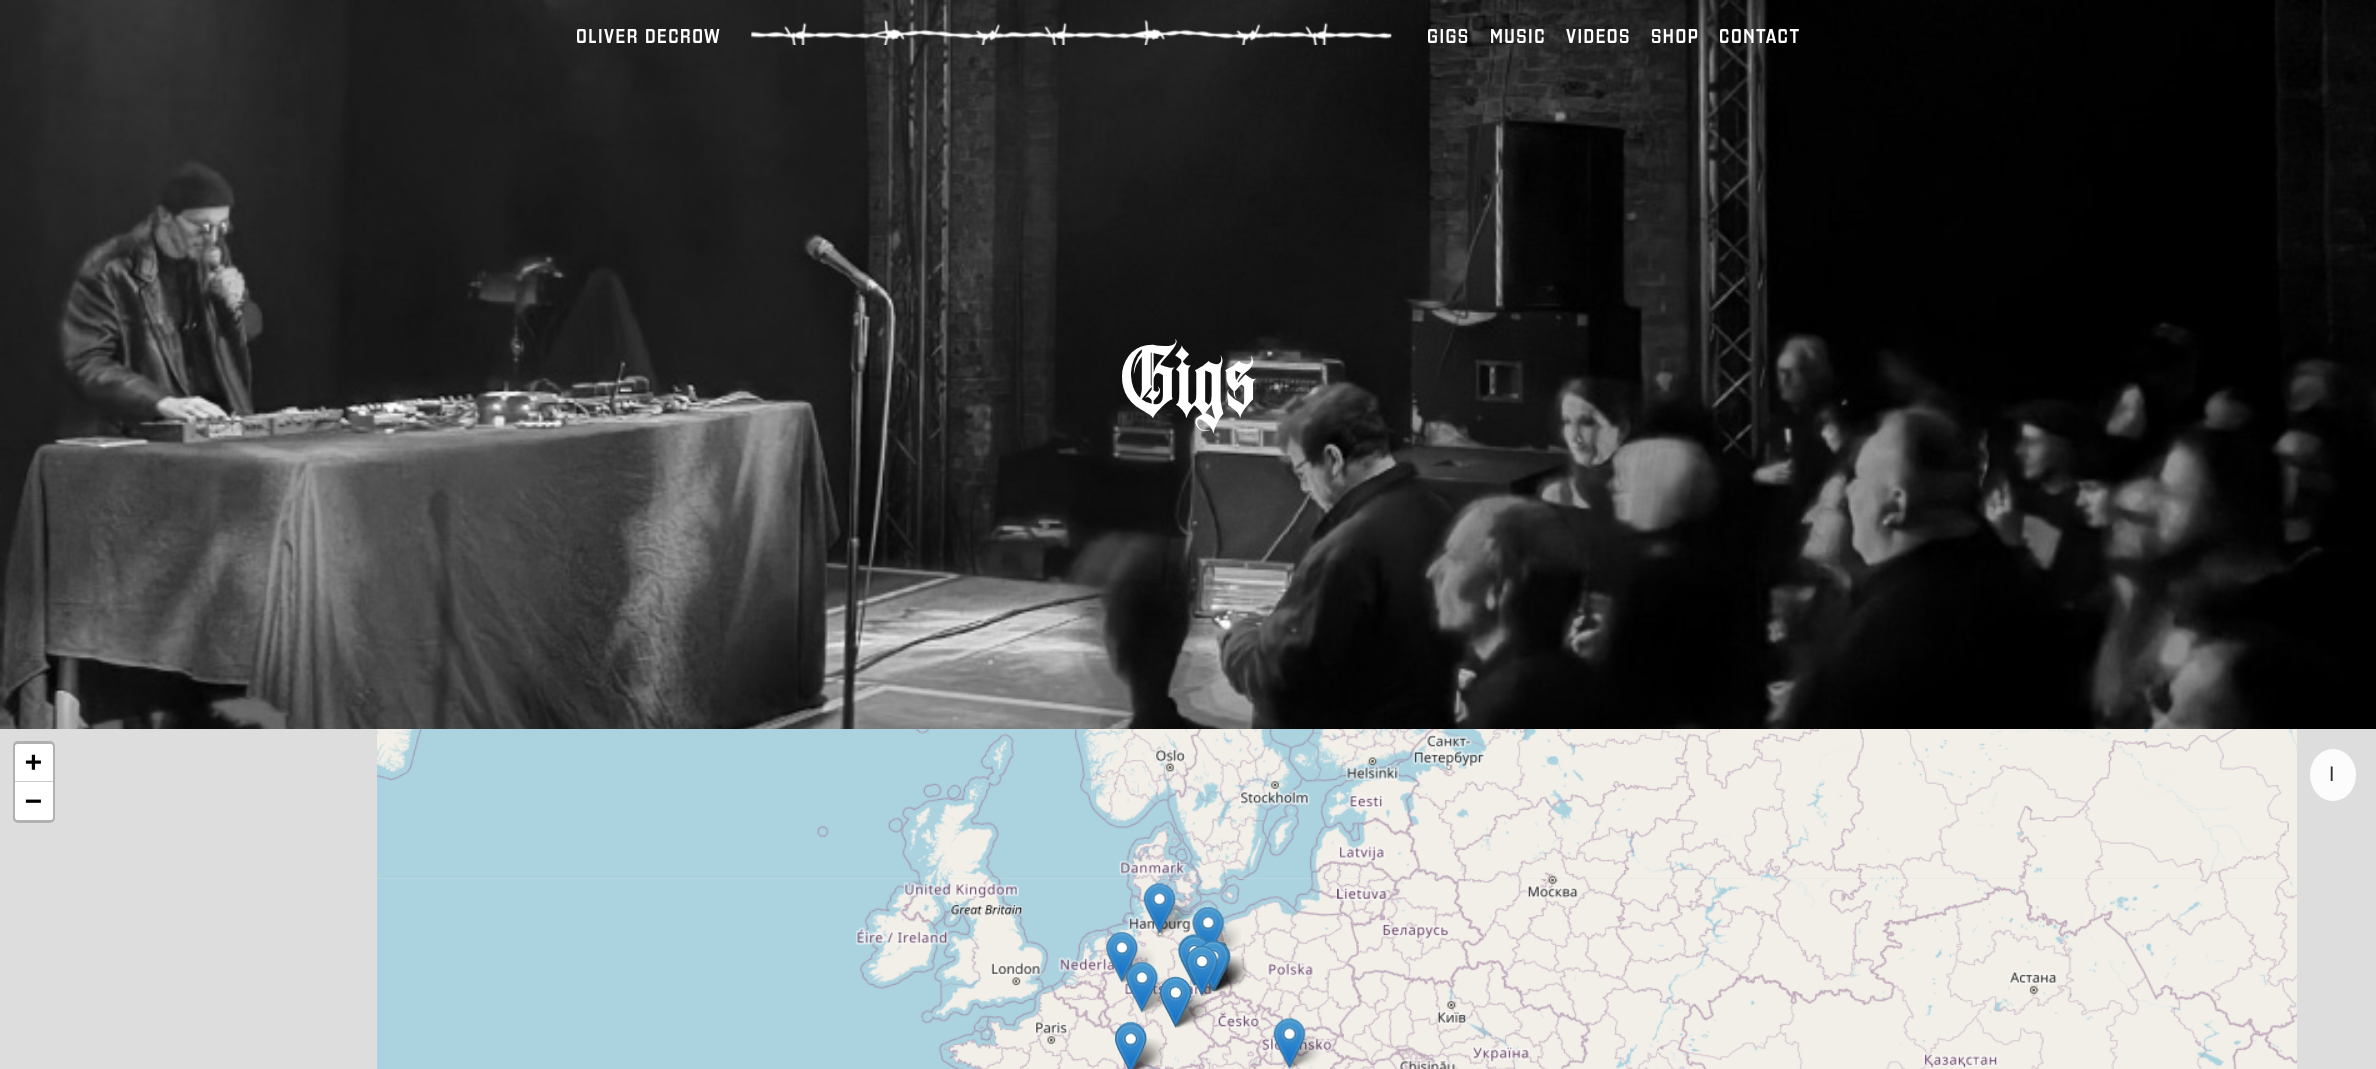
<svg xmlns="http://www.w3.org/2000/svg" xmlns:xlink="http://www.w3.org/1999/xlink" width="2376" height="1069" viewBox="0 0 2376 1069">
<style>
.cls-1{font:20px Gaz;letter-spacing:1.5px;fill:#ffffff}
.cls-2{font:120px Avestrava;letter-spacing:1.5px;fill:#ffffff}
.cls-3{font:bold 28px DejaVu Sans Mono;letter-spacing:1.5px;fill:#000000}
.cls-4{font:20px Inter;letter-spacing:1.5px;fill:#2f2f2f}
</style>
<rect width="100%" height="100%" fill="#ffffff"/>
<image xlink:href="image1.png" x="0" y="0" width="2376" height="729"/>
<image xlink:href="image0.png" x="751" y="20" width="641" height="25"/>
<rect fill="#dddddd" x="0" y="729" width="2376" height="340"/>
<rect fill="none" stroke="#b1b1b1" stroke-width="3" x="14.5" y="742.5" width="39" height="79" rx="3.5"/>
<path fill="#ffffff" d="M17.5 744H50.5C52 744 53 745 53 746.5V783H15V746.5C15 745 16 744 17.5 744Z"/>
<rect fill="#cccccc" x="15" y="781" width="38" height="1"/>
<path fill="#ffffff" d="M15 783H53V817.5C53 819 52 820 50.5 820H17.5C16 820 15 819 15 817.5Z"/>
<image xlink:href="image2.png" x="377" y="729" width="320" height="150"/>
<image xlink:href="image3.png" x="697" y="729" width="320" height="150"/>
<image xlink:href="image4.png" x="1017" y="729" width="320" height="150"/>
<image xlink:href="image5.png" x="1337" y="729" width="320" height="150"/>
<image xlink:href="image6.png" x="1657" y="729" width="320" height="150"/>
<image xlink:href="image7.png" x="1977" y="729" width="320" height="150"/>
<rect fill="#aad3df" x="377" y="879" width="320" height="190"/>
<image xlink:href="image8.png" x="697" y="879" width="320" height="190"/>
<image xlink:href="image9.png" x="1017" y="879" width="320" height="190"/>
<image xlink:href="image10.png" x="1337" y="879" width="320" height="190"/>
<image xlink:href="image11.png" x="1657" y="879" width="320" height="190"/>
<image xlink:href="image12.png" x="1977" y="879" width="320" height="190"/>
<image xlink:href="image30.png" x="1155" y="898" width="37" height="36"/>
<image xlink:href="image13.png" x="1143" y="882" width="33" height="52"/>
<image xlink:href="image31.png" x="1215" y="922" width="26" height="30"/>
<image xlink:href="image14.png" x="1192" y="906" width="33" height="37"/>
<image xlink:href="image40.png" x="1138" y="977" width="29" height="36"/>
<image xlink:href="image32.png" x="1118" y="947" width="37" height="36"/>
<image xlink:href="image15.png" x="1106" y="931" width="33" height="52"/>
<image xlink:href="image33.png" x="1209" y="956" width="37" height="36"/>
<image xlink:href="image35.png" x="1212" y="956" width="35" height="36"/>
<image xlink:href="image36.png" x="1212" y="956" width="35" height="36"/>
<image xlink:href="image34.png" x="1209" y="956" width="37" height="36"/>
<image xlink:href="image42.png" x="1172" y="992" width="37" height="36"/>
<image xlink:href="image37.png" x="1198" y="964" width="34" height="33"/>
<image xlink:href="image38.png" x="1191" y="967" width="35" height="20"/>
<image xlink:href="image39.png" x="1191" y="967" width="35" height="19"/>
<image xlink:href="image41.png" x="1191" y="969" width="34" height="17"/>
<image xlink:href="image16.png" x="1178" y="933" width="31" height="53"/>
<image xlink:href="image17.png" x="1178" y="933" width="31" height="52"/>
<image xlink:href="image18.png" x="1178" y="936" width="30" height="51"/>
<image xlink:href="image19.png" x="1200" y="941" width="30" height="50"/>
<image xlink:href="image21.png" x="1202" y="941" width="29" height="51"/>
<image xlink:href="image22.png" x="1202" y="941" width="29" height="51"/>
<image xlink:href="image20.png" x="1200" y="941" width="29" height="50"/>
<image xlink:href="image23.png" x="1126" y="961" width="33" height="52"/>
<image xlink:href="image43.png" x="1172" y="992" width="37" height="36"/>
<image xlink:href="image25.png" x="1186" y="946" width="32" height="51"/>
<image xlink:href="image24.png" x="1160" y="976" width="32" height="52"/>
<image xlink:href="image26.png" x="1160" y="976" width="32" height="52"/>
<image xlink:href="image46.png" x="1127" y="1039" width="37" height="30"/>
<image xlink:href="image44.png" x="1128" y="1037" width="36" height="32"/>
<image xlink:href="image27.png" x="1115" y="1021" width="32" height="48"/>
<image xlink:href="image45.png" x="1285" y="1033" width="37" height="36"/>
<image xlink:href="image28.png" x="1273" y="1017" width="33" height="52"/>
<image xlink:href="image29.png" x="1115" y="1023" width="32" height="46"/>
<ellipse fill="#fcfcfc" cx="2333" cy="775" rx="23" ry="26"/>
<text class="cls-1" x="576" y="43">OLIVER DECROW</text>
<text class="cls-1" x="1427" y="43">GIGS</text>
<text class="cls-1" x="1490" y="43">MUSIC</text>
<text class="cls-1" x="1566" y="43">VIDEOS</text>
<text class="cls-1" x="1651" y="43">SHOP</text>
<text class="cls-1" x="1719" y="43">CONTACT</text>
<text class="cls-2" x="1120" y="413">Gigs</text>
<text class="cls-3"><tspan x="25" y="771">+</tspan><tspan x="25" y="810">−</tspan></text>
<text class="cls-4" x="2329" y="781">I</text>
</svg>
